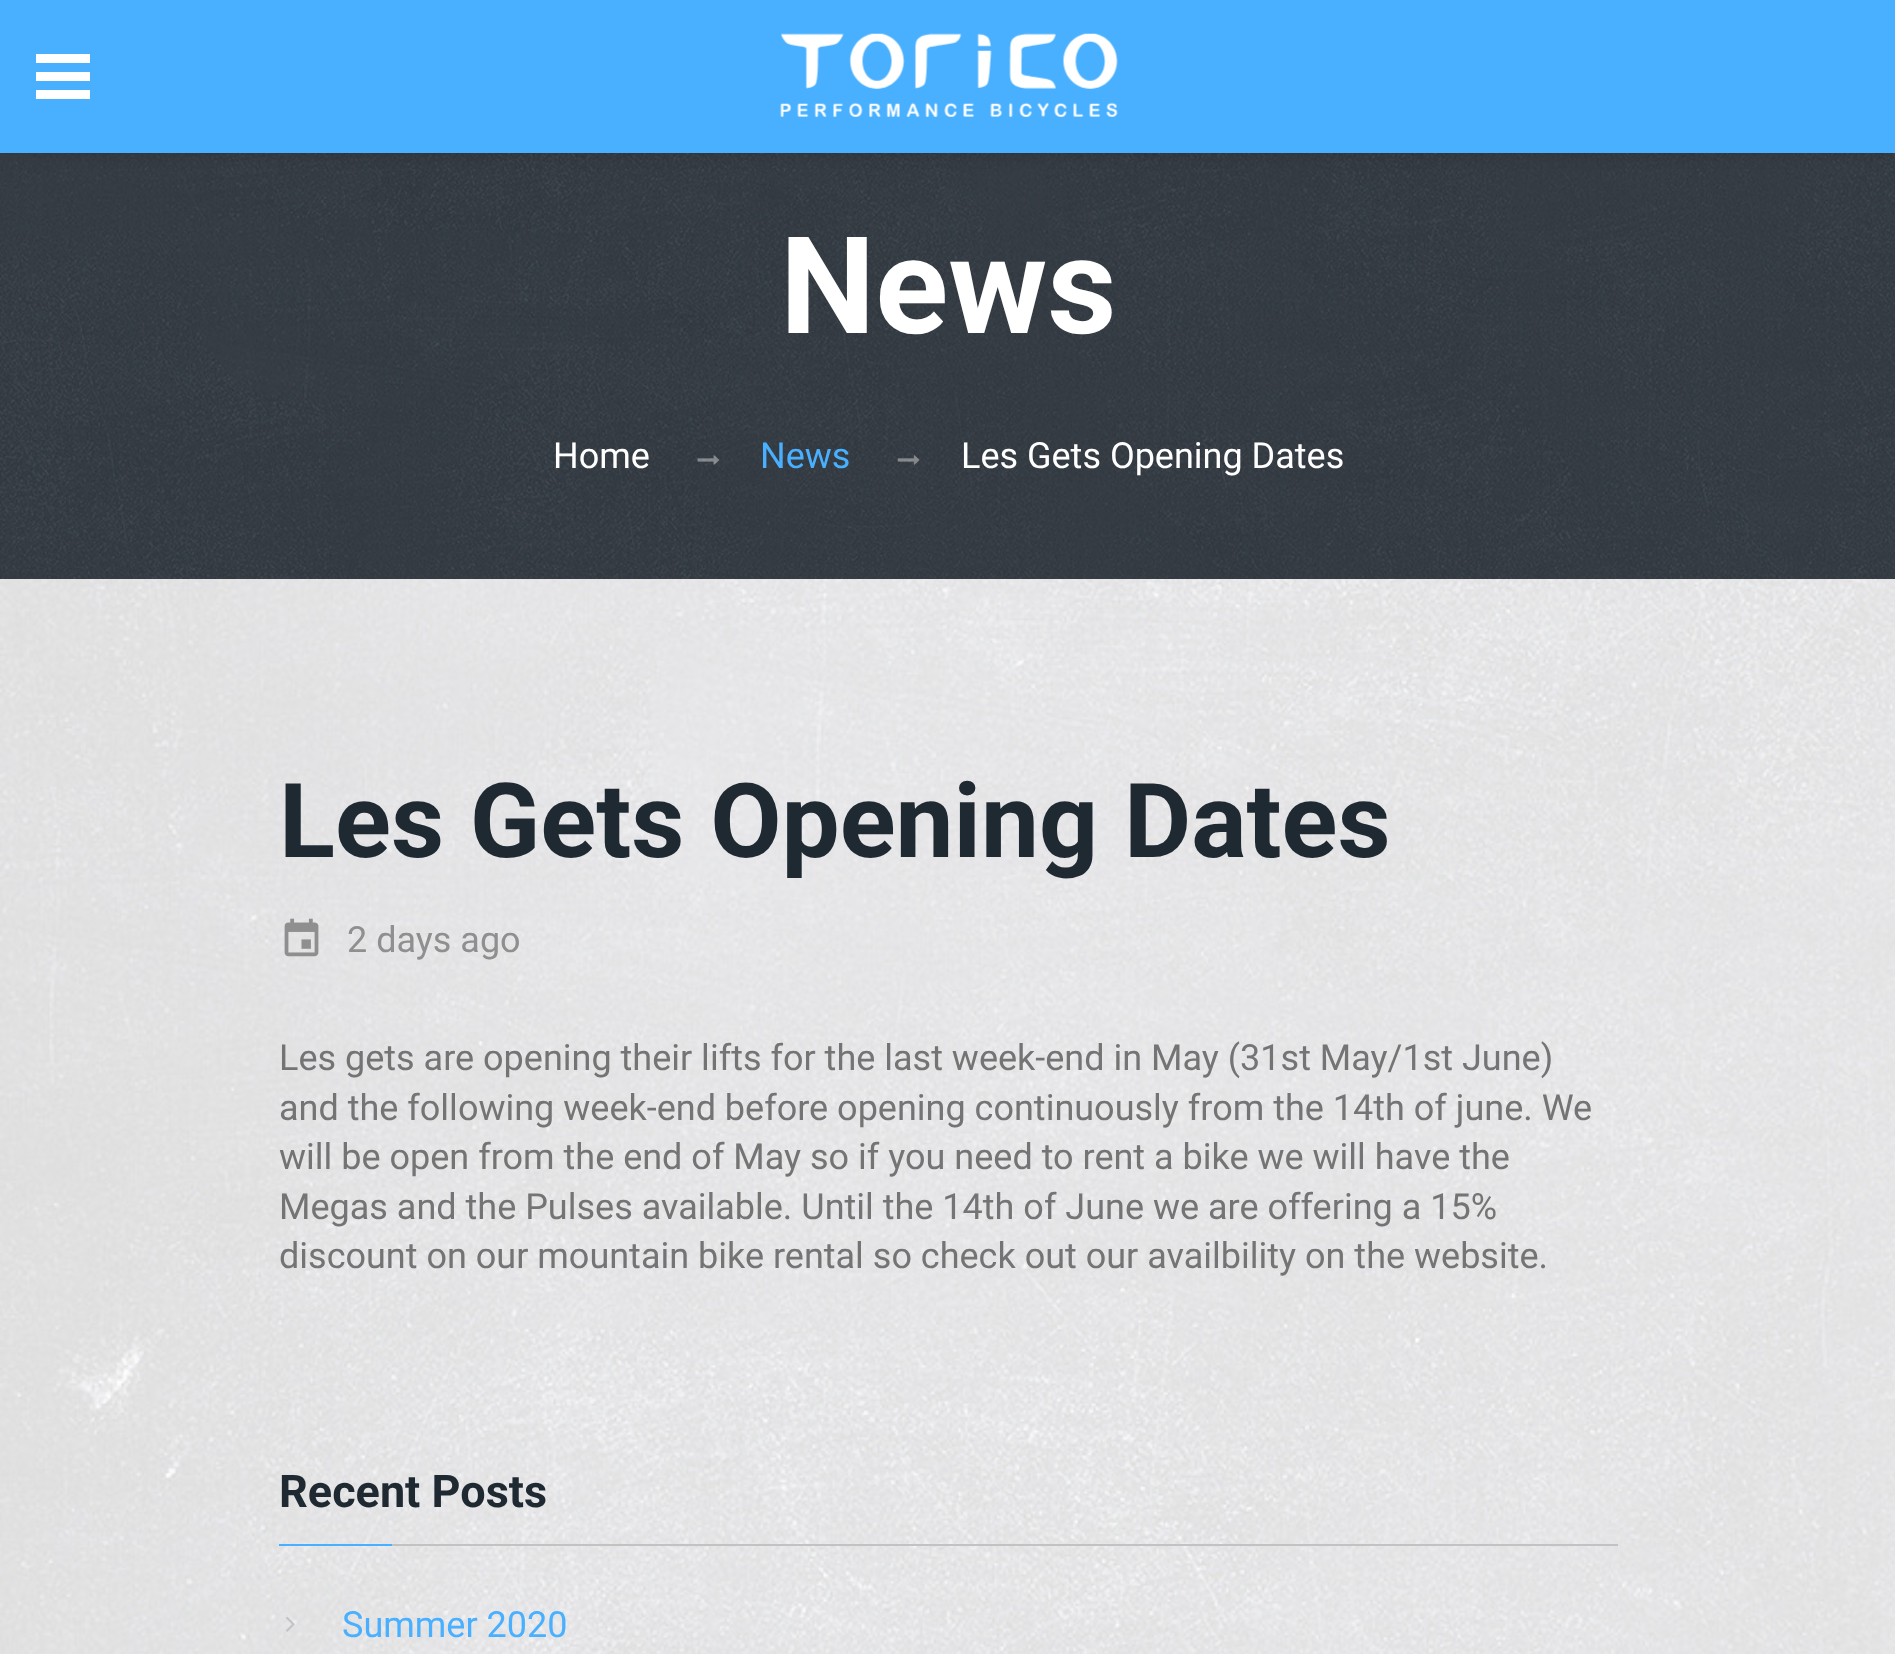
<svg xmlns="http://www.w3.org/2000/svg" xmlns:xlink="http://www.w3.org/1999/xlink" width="1895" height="1654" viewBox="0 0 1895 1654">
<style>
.cls-1{font:bold 135px Roboto;fill:#ffffff}
.cls-2{font:36px Roboto;fill:#ffffff}
.cls-3{font:36px Roboto;fill:#49b0ff}
.cls-4{font:bold 103.5px Roboto;fill:#1f2932}
.cls-5{font:36px Roboto;fill:#8f8f8f}
.cls-6{font:36px Roboto;fill:#747474}
.cls-7{font:bold 45px Roboto;fill:#1f2932}
</style>
<rect width="100%" height="100%" fill="#ffffff"/>
<image xlink:href="image0.png" x="0" y="579" width="1895" height="1075"/>
<image xlink:href="image2.png" x="0" y="153" width="1895" height="426"/>
<rect fill="#000000" fill-opacity="0.15" filter="blur(8px)" x="0" y="0" width="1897" height="153"/>
<rect fill="#49b0ff" x="0" y="0" width="1895" height="153"/>
<rect fill="#ffffff" x="36" y="72" width="54" height="9"/>
<rect fill="#ffffff" x="36" y="54" width="54" height="9"/>
<rect fill="#ffffff" x="36" y="90" width="54" height="9"/>
<image xlink:href="image1.png" x="780" y="33" width="338" height="84"/>
<image xlink:href="image3.png" x="697" y="455" width="23" height="10"/>
<image xlink:href="image4.png" x="897" y="455" width="23" height="10"/>
<image xlink:href="image5.png" x="284" y="918" width="35" height="39"/>
<rect fill="#c2c2c2" x="392" y="1544" width="1226" height="2"/>
<rect fill="#49b0ff" x="279" y="1544" width="113" height="2"/>
<image xlink:href="image6.png" x="286" y="1617" width="9" height="15"/>
<text class="cls-1" x="780" y="333">News</text>
<text class="cls-2" x="553" y="468">Home</text>
<text class="cls-3" x="760" y="468">News</text>
<text class="cls-2" x="961" y="468">Les Gets Opening Dates</text>
<text class="cls-4" x="279" y="857">Les Gets Opening Dates</text>
<text class="cls-5" x="347" y="952">2 days ago</text>
<text class="cls-6"><tspan x="279" y="1070">Les gets are opening their lifts for the last week-end in May (31st May/1st June)</tspan><tspan x="279" y="1120">and the following week-end before opening continuously from the 14th of june. We</tspan><tspan x="279" y="1169">will be open from the end of May so if you need to rent a bike we will have the</tspan><tspan x="279" y="1219">Megas and the Pulses available. Until the 14th of June we are offering a 15%</tspan><tspan x="279" y="1268">discount on our mountain bike rental so check out our availbility on the website.</tspan></text>
<text class="cls-7" x="279" y="1507">Recent Posts</text>
<text class="cls-3" x="342" y="1637">Summer 2020</text>
</svg>
